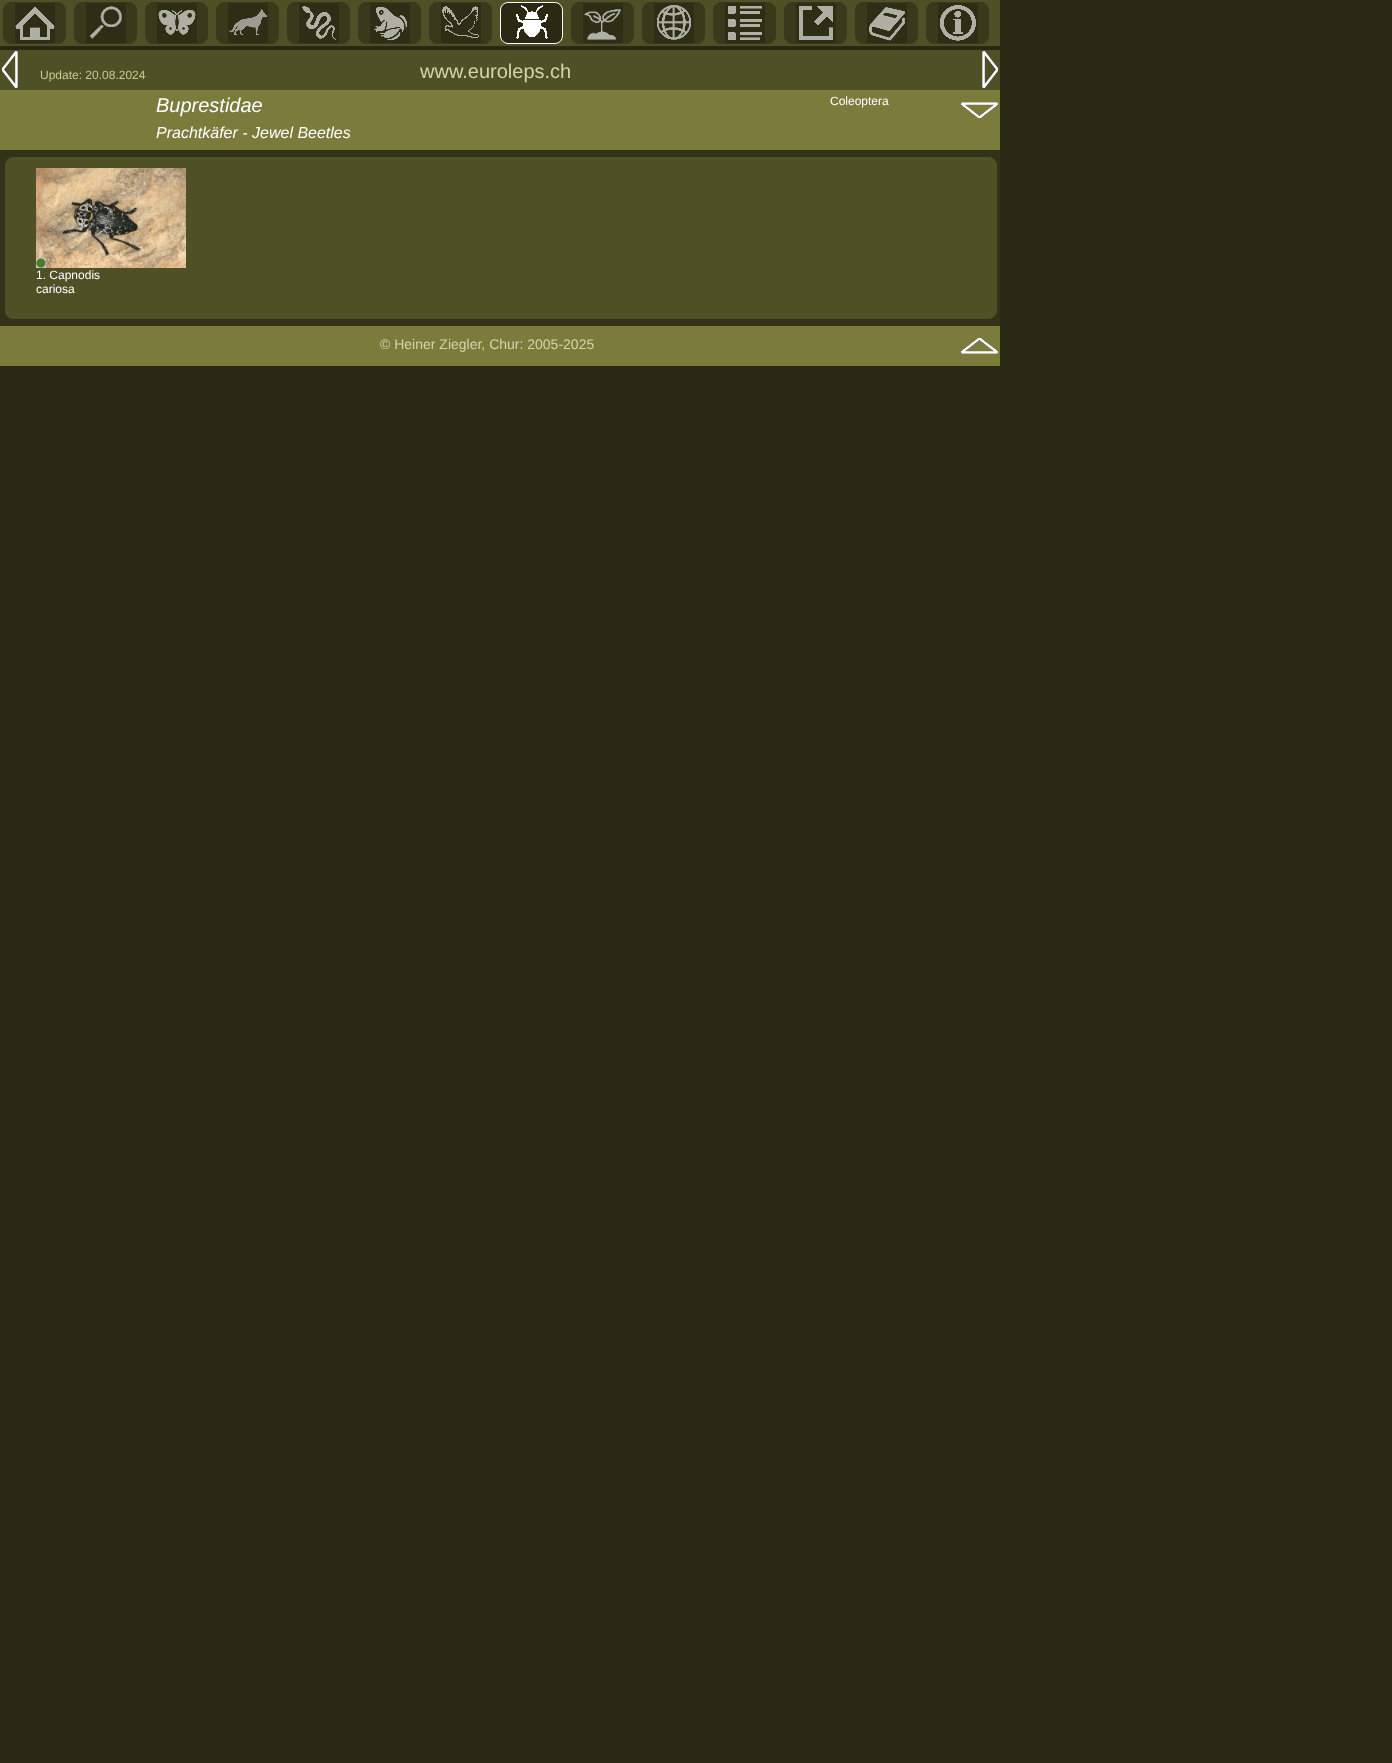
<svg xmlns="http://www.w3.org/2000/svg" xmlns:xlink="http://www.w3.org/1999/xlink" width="1392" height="1763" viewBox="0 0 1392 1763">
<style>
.cls-1{font:12px Liberation Sans;fill:#c9c994}
.cls-2{font:20px Liberation Sans;fill:#d5d5ad}
.cls-3{font:italic 20px Liberation Sans;fill:#ffffff}
.cls-4{font:12px Liberation Sans;fill:#ffffff}
.cls-5{font:italic 16px Liberation Sans;fill:#ffffff}
.cls-6{font:14px Liberation Sans;fill:#d5d5ad}
</style>
<rect width="100%" height="100%" fill="#292914"/>
<rect fill="#505027" x="0" y="0" width="1000" height="46"/>
<rect fill="#39391c" stroke="#39391c" x="3.5" y="2.5" width="62" height="41" rx="7.5"/>
<image xlink:href="image0.png" x="15" y="3" width="40" height="40"/>
<rect fill="#39391c" stroke="#39391c" x="74.5" y="2.5" width="62" height="41" rx="7.5"/>
<image xlink:href="image1.png" x="86" y="3" width="40" height="40"/>
<rect fill="#39391c" stroke="#39391c" x="145.5" y="2.5" width="62" height="41" rx="7.5"/>
<image xlink:href="image2.png" x="157" y="3" width="40" height="40"/>
<rect fill="#39391c" stroke="#39391c" x="216.5" y="2.5" width="62" height="41" rx="7.5"/>
<image xlink:href="image3.png" x="228" y="3" width="40" height="40"/>
<rect fill="#39391c" stroke="#39391c" x="287.5" y="2.5" width="62" height="41" rx="7.5"/>
<image xlink:href="image4.png" x="299" y="3" width="40" height="40"/>
<rect fill="#39391c" stroke="#39391c" x="358.5" y="2.5" width="62" height="41" rx="7.5"/>
<image xlink:href="image5.png" x="370" y="3" width="40" height="40"/>
<rect fill="#39391c" stroke="#39391c" x="429.5" y="2.5" width="62" height="41" rx="7.5"/>
<image xlink:href="image6.png" x="441" y="3" width="40" height="40"/>
<rect fill="#292914" stroke="#ffffff" x="500.5" y="2.5" width="62" height="41" rx="7.5"/>
<image xlink:href="image7.png" x="516" y="5" width="32" height="34"/>
<rect fill="#39391c" stroke="#39391c" x="571.5" y="2.5" width="62" height="41" rx="7.5"/>
<image xlink:href="image8.png" x="583" y="3" width="40" height="40"/>
<rect fill="#39391c" stroke="#39391c" x="642.5" y="2.5" width="62" height="41" rx="7.5"/>
<image xlink:href="image9.png" x="654" y="3" width="40" height="40"/>
<rect fill="#39391c" stroke="#39391c" x="713.5" y="2.5" width="62" height="41" rx="7.5"/>
<image xlink:href="image10.png" x="725" y="3" width="40" height="40"/>
<rect fill="#39391c" stroke="#39391c" x="784.5" y="2.5" width="62" height="41" rx="7.5"/>
<image xlink:href="image11.png" x="796" y="3" width="40" height="40"/>
<rect fill="#39391c" stroke="#39391c" x="855.5" y="2.5" width="62" height="41" rx="7.5"/>
<image xlink:href="image12.png" x="867" y="3" width="40" height="40"/>
<rect fill="#39391c" stroke="#39391c" x="926.5" y="2.5" width="62" height="41" rx="7.5"/>
<image xlink:href="image13.png" x="938" y="3" width="40" height="40"/>
<rect fill="#505027" x="0" y="50" width="1000" height="40"/>
<image xlink:href="image14.png" x="2" y="51" width="16" height="37"/>
<image xlink:href="image15.png" x="982" y="51" width="16" height="37"/>
<rect fill="#7b7b3c" x="0" y="90" width="1000" height="60"/>
<image xlink:href="image16.png" x="961" y="102" width="37" height="16"/>
<rect fill="#323218" x="0" y="150" width="1000" height="176"/>
<rect fill="#505027" stroke="#505027" x="5.5" y="157.5" width="991" height="161" rx="7.5"/>
<image xlink:href="image17.png" x="36" y="168" width="150" height="100"/>
<image xlink:href="image18.png" x="36" y="258" width="10" height="10"/>
<rect fill="#7b7b3c" x="0" y="326" width="1000" height="40"/>
<image xlink:href="image19.png" x="961" y="338" width="37" height="16"/>
<text class="cls-1" x="40" y="79">Update: 20.08.2024</text>
<text class="cls-2" x="420" y="78">www.euroleps.ch</text>
<text class="cls-3" x="156" y="112">Buprestidae</text>
<text class="cls-4" x="830" y="105">Coleoptera</text>
<text class="cls-5" x="156" y="138">Prachtkäfer - Jewel Beetles</text>
<text class="cls-4"><tspan x="36" y="279">1. Capnodis</tspan><tspan x="36" y="293">cariosa</tspan></text>
<text class="cls-6" x="380" y="349">© Heiner Ziegler, Chur: 2005-2025</text>
</svg>
